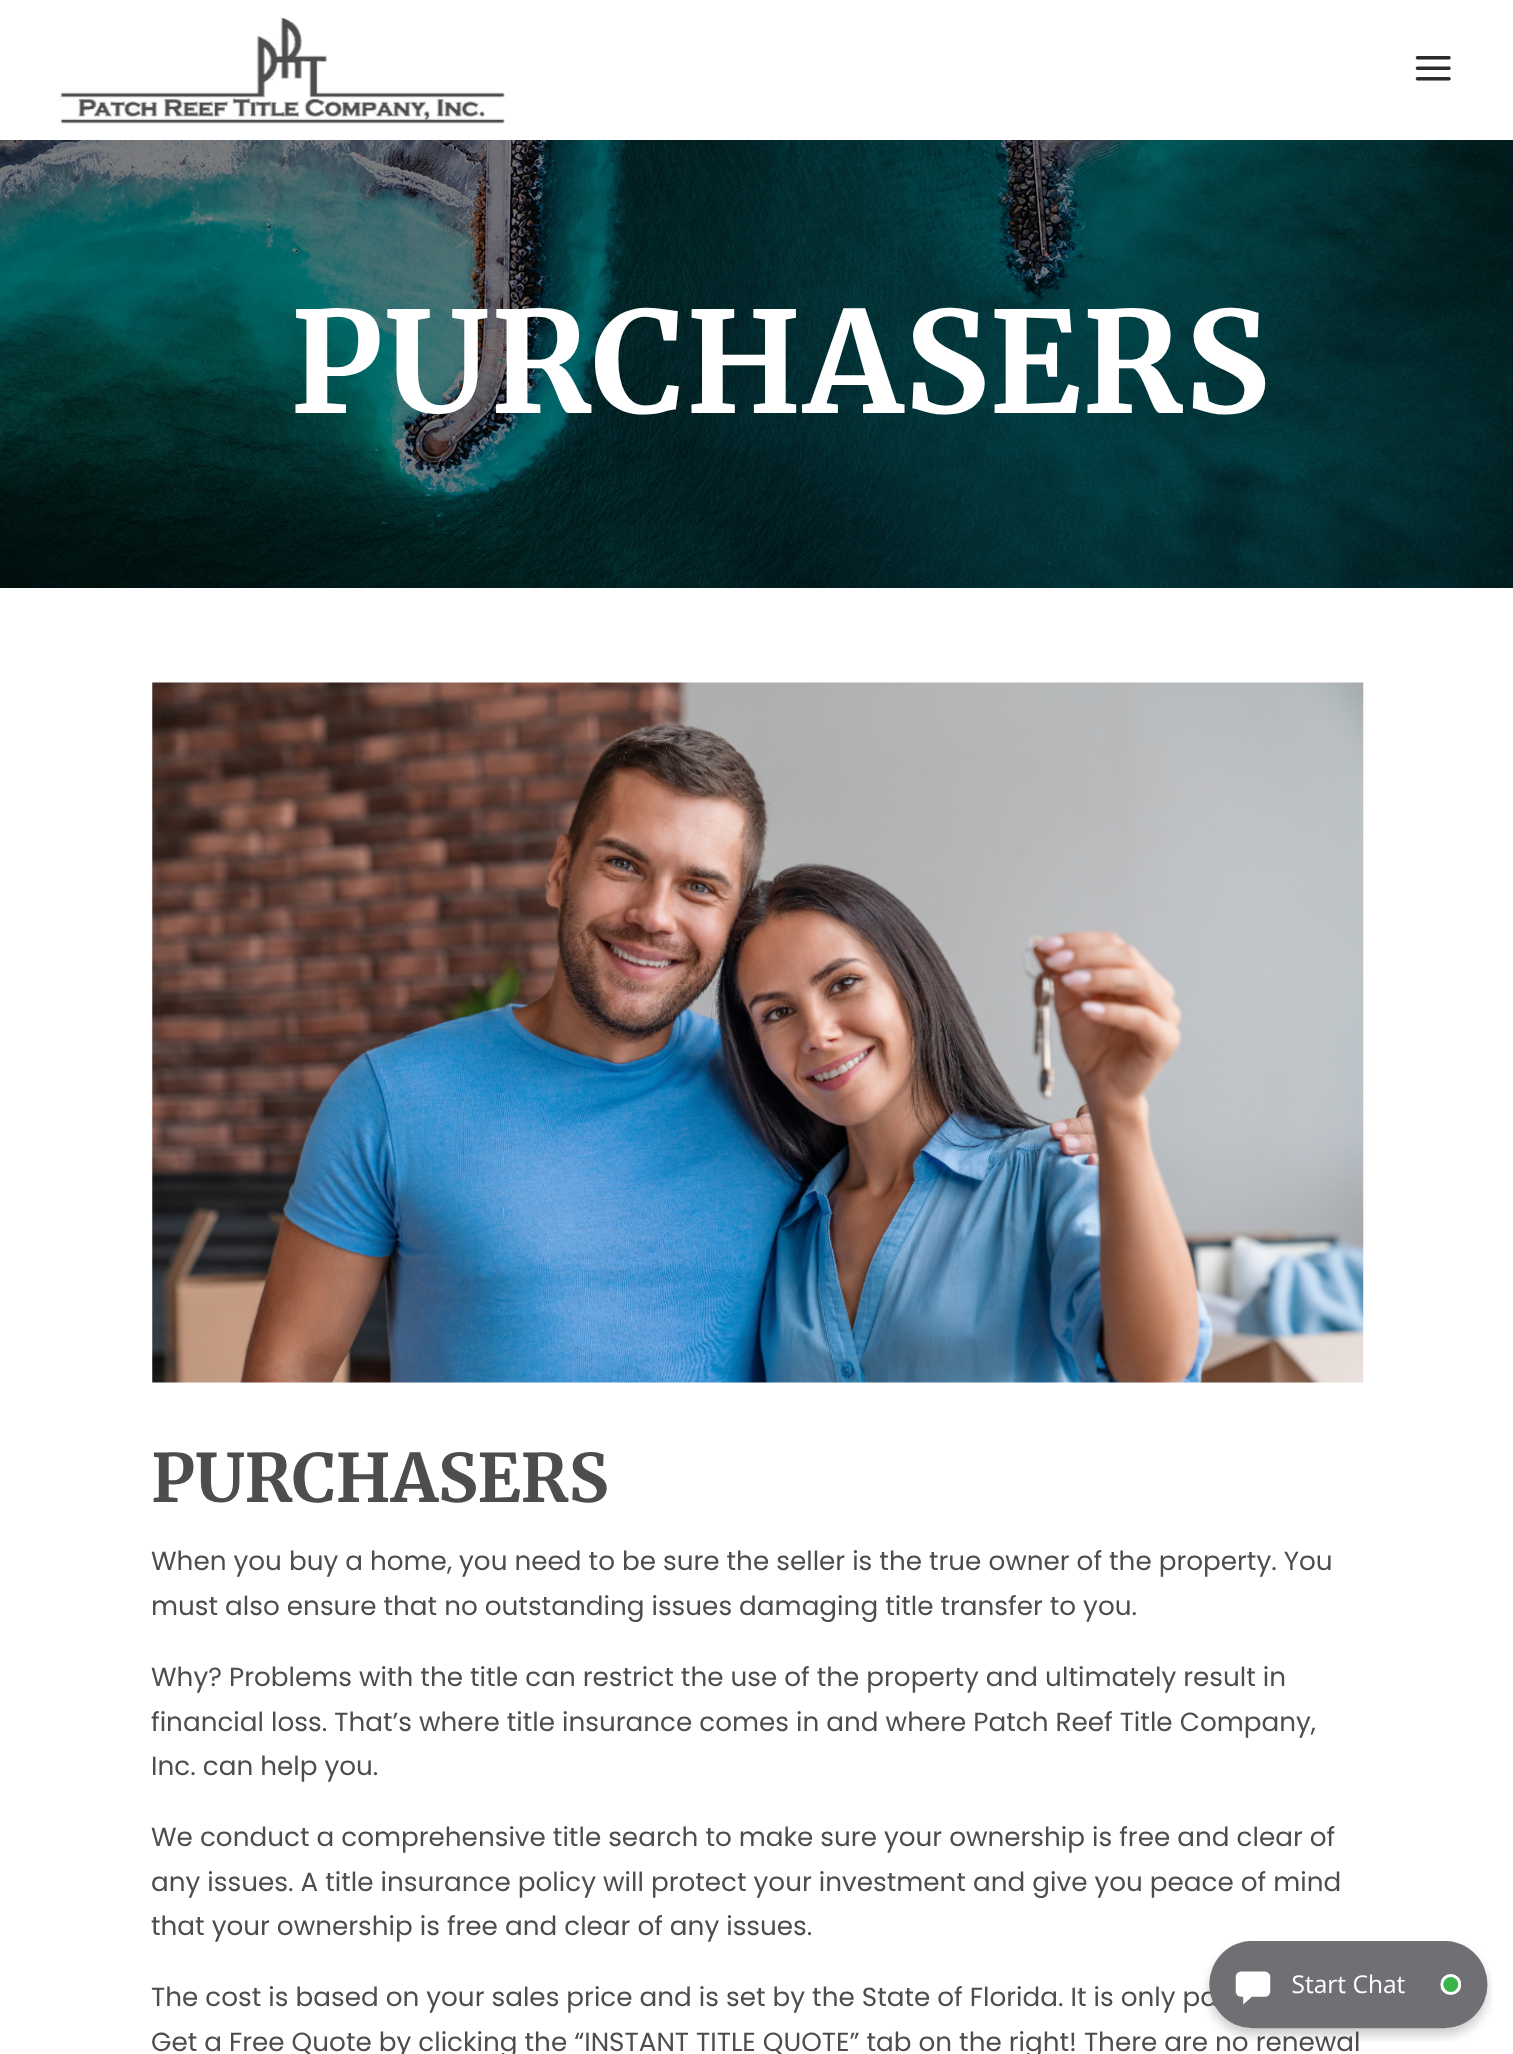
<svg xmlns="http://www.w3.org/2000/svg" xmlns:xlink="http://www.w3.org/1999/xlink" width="1513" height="2054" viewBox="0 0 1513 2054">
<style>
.cls-1{font:bold 140px Merriweather;letter-spacing:1.75px;fill:#ffffff}
.cls-2{font:bold 66.5px Merriweather;fill:#4d4d4d}
.cls-3{font:26.25px Poppins;fill:#4d4d4d}
</style>
<rect width="100%" height="100%" fill="#ffffff"/>
<image xlink:href="image0.png" x="59" y="17" width="447" height="107"/>
<image xlink:href="image1.png" x="1415" y="56" width="36" height="25"/>
<image xlink:href="image2.png" x="0" y="140" width="1513" height="448"/>
<image xlink:href="image3.png" x="152" y="682" width="1212" height="701"/>
<text class="cls-1" x="290" y="413">PURCHASERS</text>
<text class="cls-2" x="151" y="1502">PURCHASERS</text>
<text class="cls-3"><tspan x="151" y="1570">When you buy a home, you need to be sure the seller is the true owner of the property. You</tspan><tspan x="151" y="1615">must also ensure that no outstanding issues damaging title transfer to you.</tspan></text>
<text class="cls-3"><tspan x="151" y="1686">Why? Problems with the title can restrict the use of the property and ultimately result in</tspan><tspan x="151" y="1731">financial loss. That’s where title insurance comes in and where Patch Reef Title Company,</tspan><tspan x="151" y="1775">Inc. can help you.</tspan></text>
<text class="cls-3"><tspan x="151" y="1846">We conduct a comprehensive title search to make sure your ownership is free and clear of</tspan><tspan x="151" y="1891">any issues. A title insurance policy will protect your investment and give you peace of mind</tspan><tspan x="151" y="1935">that your ownership is free and clear of any issues.</tspan></text>
<text class="cls-3"><tspan x="151" y="2006">The cost is based on your sales price and is set by the State of Florida. It is only pa</tspan><tspan x="151" y="2051">Get a Free Quote by clicking the “INSTANT TITLE QUOTE” tab on the right! There are no renewal</tspan></text>
<image xlink:href="image4.png" x="1203" y="1941" width="290" height="101"/>
</svg>
